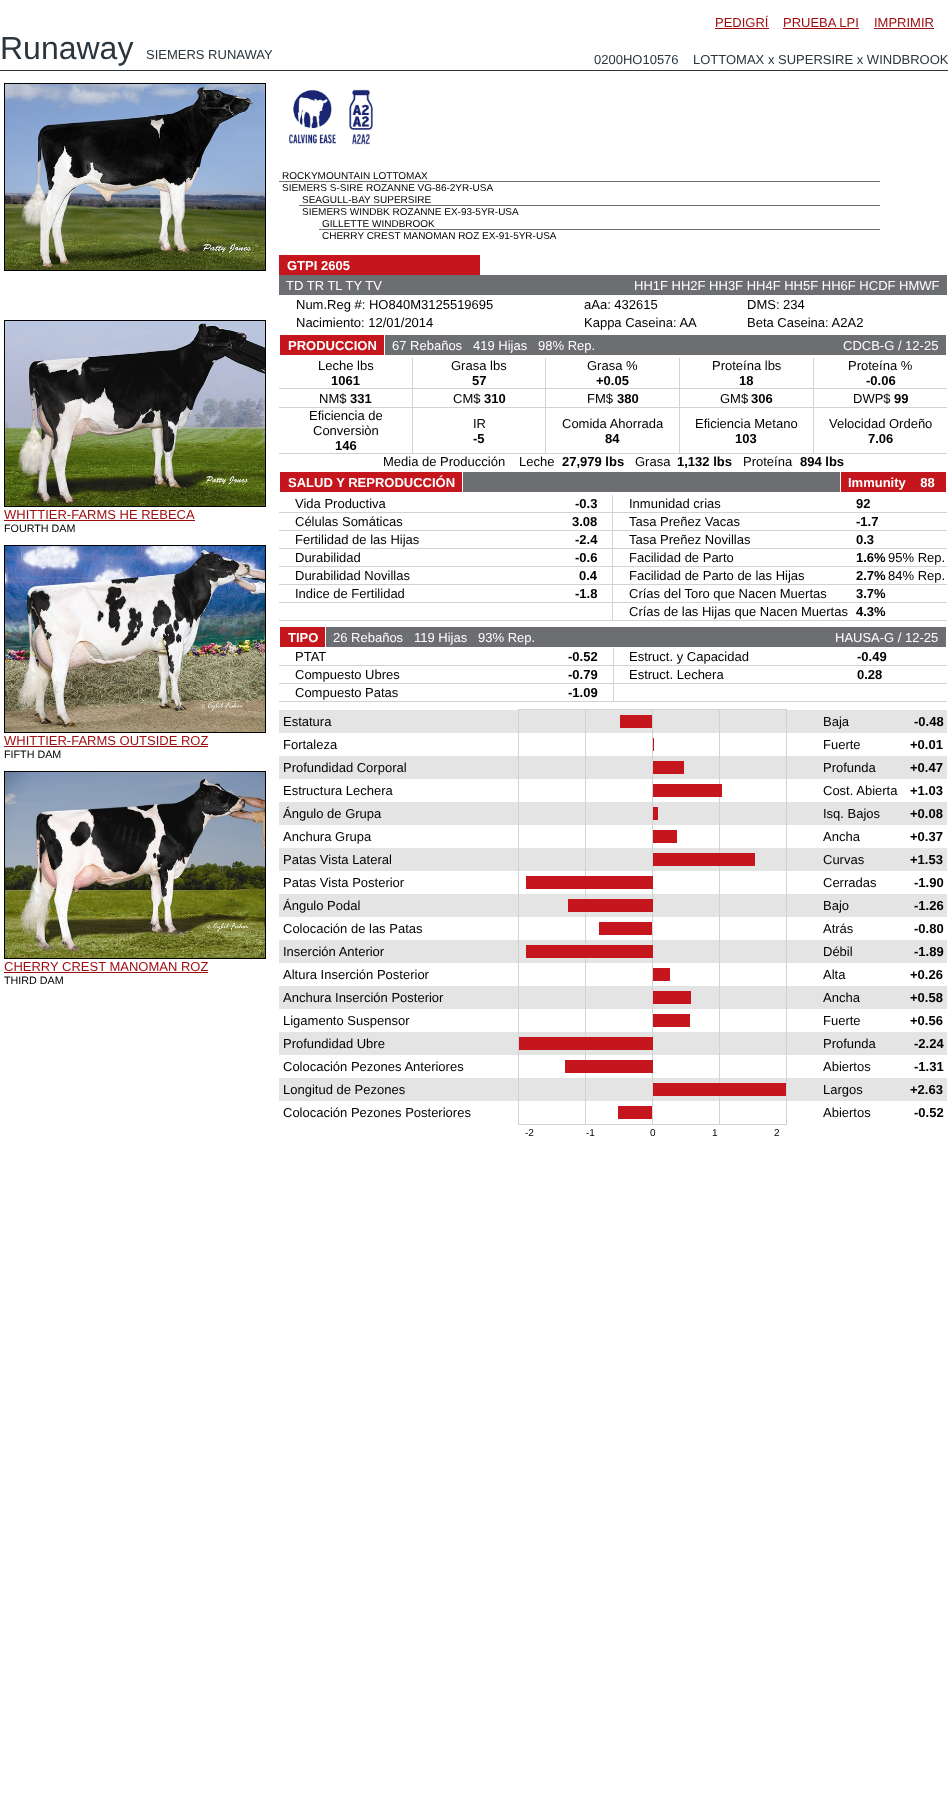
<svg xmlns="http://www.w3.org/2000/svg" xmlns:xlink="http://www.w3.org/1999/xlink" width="948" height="1800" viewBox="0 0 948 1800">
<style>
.cls-1{font:13px Liberation Sans;fill:#9d0b0e}
.cls-2{font:32px Liberation Sans;fill:#2a353e}
.cls-3{font:13px Liberation Sans;fill:#2a353e}
.cls-4{font:10.75px Liberation Sans;fill:#000000}
.cls-5{font:10px Liberation Sans;fill:#000000}
.cls-6{font:bold 13px Liberation Sans;fill:#ffffff}
.cls-7{font:13px Liberation Sans;fill:#ffffff}
.cls-8{font:13px Liberation Sans;fill:#000000}
.cls-9{font:bold 13px Liberation Sans;fill:#000000}
</style>
<rect width="100%" height="100%" fill="#ffffff"/>
<rect fill="#9d0b0e" x="715" y="28" width="54" height="1"/>
<rect fill="#9d0b0e" x="783" y="28" width="76" height="1"/>
<rect fill="#9d0b0e" x="874" y="28" width="60" height="1"/>
<rect fill="#2a353e" x="0" y="70" width="948" height="1"/>
<rect fill="#000000" x="4" y="83" width="262" height="188"/>
<image xlink:href="image0.png" x="5" y="84" width="260" height="186"/>
<rect fill="#000000" x="4" y="320" width="262" height="187"/>
<image xlink:href="image1.png" x="5" y="321" width="260" height="185"/>
<rect fill="#9d0b0e" x="4" y="520" width="191" height="1"/>
<rect fill="#000000" x="4" y="545" width="262" height="188"/>
<image xlink:href="image2.png" x="5" y="546" width="260" height="186"/>
<rect fill="#9d0b0e" x="4" y="746" width="204" height="1"/>
<rect fill="#000000" x="4" y="771" width="262" height="188"/>
<image xlink:href="image3.png" x="5" y="772" width="260" height="186"/>
<rect fill="#9d0b0e" x="4" y="972" width="204" height="1"/>
<image xlink:href="image4.png" x="289" y="89" width="47" height="55"/>
<image xlink:href="image5.png" x="349" y="89" width="24" height="56"/>
<rect fill="#6f6e70" x="279" y="181" width="601" height="1"/>
<rect fill="#6f6e70" x="299" y="205" width="581" height="1"/>
<rect fill="#6f6e70" x="319" y="229" width="561" height="1"/>
<rect fill="#c4161c" x="279" y="255" width="201" height="20"/>
<rect fill="#6d6e71" x="279" y="275" width="668" height="20"/>
<rect fill="#c4161c" x="280" y="335" width="104" height="20"/>
<rect fill="#6d6e71" x="385" y="335" width="561" height="20"/>
<rect fill="#d1d2d4" x="412" y="358" width="1" height="30"/>
<rect fill="#d1d2d4" x="545" y="358" width="1" height="30"/>
<rect fill="#d1d2d4" x="679" y="358" width="1" height="30"/>
<rect fill="#d1d2d4" x="813" y="358" width="1" height="30"/>
<rect fill="#d1d2d4" x="279" y="388" width="668" height="1"/>
<rect fill="#d1d2d4" x="412" y="389" width="1" height="18"/>
<rect fill="#d1d2d4" x="545" y="389" width="1" height="18"/>
<rect fill="#d1d2d4" x="679" y="389" width="1" height="18"/>
<rect fill="#d1d2d4" x="813" y="389" width="1" height="18"/>
<rect fill="#d1d2d4" x="279" y="407" width="668" height="1"/>
<rect fill="#d1d2d4" x="412" y="408" width="1" height="45"/>
<rect fill="#d1d2d4" x="545" y="408" width="1" height="45"/>
<rect fill="#d1d2d4" x="679" y="408" width="1" height="45"/>
<rect fill="#d1d2d4" x="813" y="408" width="1" height="45"/>
<rect fill="#d1d2d4" x="279" y="453" width="668" height="1"/>
<rect fill="#c4161c" x="280" y="472" width="182" height="20"/>
<rect fill="#6d6e71" x="463" y="472" width="377" height="20"/>
<rect fill="#c4161c" x="841" y="472" width="105" height="20"/>
<rect fill="#d1d2d4" x="612" y="495" width="1" height="17"/>
<rect fill="#d1d2d4" x="279" y="512" width="668" height="1"/>
<rect fill="#d1d2d4" x="612" y="513" width="1" height="17"/>
<rect fill="#d1d2d4" x="279" y="530" width="668" height="1"/>
<rect fill="#d1d2d4" x="612" y="531" width="1" height="17"/>
<rect fill="#d1d2d4" x="279" y="548" width="668" height="1"/>
<rect fill="#d1d2d4" x="612" y="549" width="1" height="17"/>
<rect fill="#d1d2d4" x="279" y="566" width="668" height="1"/>
<rect fill="#d1d2d4" x="612" y="567" width="1" height="17"/>
<rect fill="#d1d2d4" x="279" y="584" width="668" height="1"/>
<rect fill="#d1d2d4" x="612" y="585" width="1" height="17"/>
<rect fill="#d1d2d4" x="279" y="602" width="668" height="1"/>
<rect fill="#d1d2d4" x="612" y="603" width="1" height="17"/>
<rect fill="#d1d2d4" x="279" y="620" width="668" height="1"/>
<rect fill="#c4161c" x="280" y="627" width="45" height="20"/>
<rect fill="#6d6e71" x="326" y="627" width="620" height="20"/>
<rect fill="#d1d2d4" x="613" y="648" width="1" height="17"/>
<rect fill="#d1d2d4" x="279" y="665" width="668" height="1"/>
<rect fill="#d1d2d4" x="613" y="666" width="1" height="17"/>
<rect fill="#d1d2d4" x="279" y="683" width="668" height="1"/>
<rect fill="#d1d2d4" x="613" y="684" width="1" height="17"/>
<rect fill="#d1d2d4" x="279" y="701" width="668" height="1"/>
<rect fill="#d1d2d4" x="518" y="709" width="269" height="1"/>
<rect fill="#e4e4e4" x="279" y="710" width="668" height="23"/>
<rect fill="#e4e4e4" x="279" y="756" width="668" height="23"/>
<rect fill="#e4e4e4" x="279" y="802" width="668" height="23"/>
<rect fill="#e4e4e4" x="279" y="848" width="668" height="23"/>
<rect fill="#e4e4e4" x="279" y="894" width="668" height="23"/>
<rect fill="#e4e4e4" x="279" y="940" width="668" height="23"/>
<rect fill="#e4e4e4" x="279" y="986" width="668" height="23"/>
<rect fill="#e4e4e4" x="279" y="1032" width="668" height="23"/>
<rect fill="#e4e4e4" x="279" y="1078" width="668" height="23"/>
<rect fill="#d1d2d4" x="518" y="710" width="1" height="414"/>
<rect fill="#d1d2d4" x="585" y="710" width="1" height="166"/>
<rect fill="#c4161c" x="620" y="715" width="32" height="13"/>
<rect fill="#d1d2d4" x="652" y="710" width="1" height="166"/>
<rect fill="#d1d2d4" x="719" y="710" width="1" height="74"/>
<rect fill="#d1d2d4" x="786" y="710" width="1" height="414"/>
<rect fill="#c4161c" x="653" y="738" width="1" height="13"/>
<rect fill="#c4161c" x="653" y="761" width="31" height="13"/>
<rect fill="#c4161c" x="653" y="784" width="69" height="13"/>
<rect fill="#d1d2d4" x="719" y="797" width="1" height="56"/>
<rect fill="#c4161c" x="653" y="807" width="5" height="13"/>
<rect fill="#c4161c" x="653" y="830" width="24" height="13"/>
<rect fill="#c4161c" x="653" y="853" width="102" height="13"/>
<rect fill="#d1d2d4" x="719" y="866" width="1" height="217"/>
<rect fill="#c4161c" x="526" y="876" width="127" height="13"/>
<rect fill="#d1d2d4" x="585" y="889" width="1" height="10"/>
<rect fill="#d1d2d4" x="652" y="889" width="1" height="10"/>
<rect fill="#c4161c" x="568" y="899" width="85" height="13"/>
<rect fill="#d1d2d4" x="585" y="912" width="1" height="33"/>
<rect fill="#d1d2d4" x="652" y="912" width="1" height="33"/>
<rect fill="#c4161c" x="599" y="922" width="53" height="13"/>
<rect fill="#c4161c" x="526" y="945" width="127" height="13"/>
<rect fill="#d1d2d4" x="585" y="958" width="1" height="79"/>
<rect fill="#d1d2d4" x="652" y="958" width="1" height="79"/>
<rect fill="#c4161c" x="653" y="968" width="17" height="13"/>
<rect fill="#c4161c" x="653" y="991" width="38" height="13"/>
<rect fill="#c4161c" x="653" y="1014" width="37" height="13"/>
<rect fill="#c4161c" x="519" y="1037" width="134" height="13"/>
<rect fill="#d1d2d4" x="585" y="1050" width="1" height="10"/>
<rect fill="#d1d2d4" x="652" y="1050" width="1" height="10"/>
<rect fill="#c4161c" x="565" y="1060" width="88" height="13"/>
<rect fill="#d1d2d4" x="585" y="1073" width="1" height="51"/>
<rect fill="#d1d2d4" x="652" y="1073" width="1" height="51"/>
<rect fill="#c4161c" x="653" y="1083" width="133" height="13"/>
<rect fill="#d1d2d4" x="719" y="1096" width="1" height="28"/>
<rect fill="#c4161c" x="618" y="1106" width="34" height="13"/>
<rect fill="#d1d2d4" x="518" y="1124" width="269" height="1"/>
<text class="cls-1" x="715" y="27">PEDIGRÍ</text>
<text class="cls-1" x="783" y="27">PRUEBA LPI</text>
<text class="cls-1" x="874" y="27">IMPRIMIR</text>
<text class="cls-2" x="0" y="59">Runaway</text>
<text class="cls-3" x="146" y="59">SIEMERS RUNAWAY</text>
<text class="cls-3" xml:space="preserve" x="594" y="64">0200HO10576    LOTTOMAX x SUPERSIRE x WINDBROOK</text>
<text class="cls-1" x="4" y="519">WHITTIER-FARMS HE REBECA</text>
<text class="cls-4" x="4" y="532">FOURTH DAM</text>
<text class="cls-1" x="4" y="745">WHITTIER-FARMS OUTSIDE ROZ</text>
<text class="cls-4" x="4" y="758">FIFTH DAM</text>
<text class="cls-1" x="4" y="971">CHERRY CREST MANOMAN ROZ</text>
<text class="cls-4" x="4" y="984">THIRD DAM</text>
<text class="cls-5"><tspan x="282" y="179">ROCKYMOUNTAIN LOTTOMAX</tspan><tspan x="282" y="191">SIEMERS S-SIRE ROZANNE VG-86-2YR-USA</tspan></text>
<text class="cls-5"><tspan x="302" y="203">SEAGULL-BAY SUPERSIRE</tspan><tspan x="302" y="215">SIEMERS WINDBK ROZANNE EX-93-5YR-USA</tspan></text>
<text class="cls-5"><tspan x="322" y="227">GILLETTE WINDBROOK</tspan><tspan x="322" y="239">CHERRY CREST MANOMAN ROZ EX-91-5YR-USA</tspan></text>
<text class="cls-6" x="287" y="270">GTPI 2605</text>
<text class="cls-7" x="286" y="290">TD TR TL TY TV</text>
<text class="cls-7" x="634" y="290">HH1F HH2F HH3F HH4F HH5F HH6F HCDF HMWF</text>
<text class="cls-8" x="296" y="309">Num.Reg #: HO840M3125519695</text>
<text class="cls-8" x="584" y="309">aAa: 432615</text>
<text class="cls-8" x="747" y="309">DMS: 234</text>
<text class="cls-8" x="296" y="327">Nacimiento: 12/01/2014</text>
<text class="cls-8" x="584" y="327">Kappa Caseina: AA</text>
<text class="cls-8" x="747" y="327">Beta Caseina: A2A2</text>
<text class="cls-6" x="288" y="350">PRODUCCION</text>
<text class="cls-7" x="392" y="350">67 Rebaños</text>
<text class="cls-7" x="473" y="350">419 Hijas</text>
<text class="cls-7" x="538" y="350">98% Rep.</text>
<text class="cls-7" x="843" y="350">CDCB-G / 12-25</text>
<text class="cls-8" x="318" y="370">Leche lbs</text>
<text class="cls-9" x="331" y="385">1061</text>
<text class="cls-8" x="451" y="370">Grasa lbs</text>
<text class="cls-9" x="472" y="385">57</text>
<text class="cls-8" x="587" y="370">Grasa %</text>
<text class="cls-9" x="596" y="385">+0.05</text>
<text class="cls-8" x="712" y="370">Proteína lbs</text>
<text class="cls-9" x="739" y="385">18</text>
<text class="cls-8" x="848" y="370">Proteína %</text>
<text class="cls-9" x="866" y="385">-0.06</text>
<text class="cls-8" x="319" y="403">NM$</text>
<text class="cls-9" x="350" y="403">331</text>
<text class="cls-8" x="453" y="403">CM$</text>
<text class="cls-9" x="484" y="403">310</text>
<text class="cls-8" x="587" y="403">FM$</text>
<text class="cls-9" x="617" y="403">380</text>
<text class="cls-8" x="720" y="403">GM$</text>
<text class="cls-9" x="751" y="403">306</text>
<text class="cls-8" x="853" y="403">DWP$</text>
<text class="cls-9" x="894" y="403">99</text>
<text class="cls-8" x="309" y="420">Eficiencia de</text>
<text class="cls-8" x="313" y="435">Conversiòn</text>
<text class="cls-9" x="335" y="450">146</text>
<text class="cls-8" x="473" y="428">IR</text>
<text class="cls-9" x="473" y="443">-5</text>
<text class="cls-8" x="562" y="428">Comida Ahorrada</text>
<text class="cls-9" x="605" y="443">84</text>
<text class="cls-8" x="695" y="428">Eficiencia Metano</text>
<text class="cls-9" x="735" y="443">103</text>
<text class="cls-8" x="829" y="428">Velocidad Ordeño</text>
<text class="cls-9" x="868" y="443">7.06</text>
<text class="cls-8" x="383" y="466">Media de Producción</text>
<text class="cls-8" x="519" y="466">Leche</text>
<text class="cls-9" x="562" y="466">27,979 lbs</text>
<text class="cls-8" x="635" y="466">Grasa</text>
<text class="cls-9" x="677" y="466">1,132 lbs</text>
<text class="cls-8" x="743" y="466">Proteína</text>
<text class="cls-9" x="800" y="466">894 lbs</text>
<text class="cls-6" x="288" y="487">SALUD Y REPRODUCCIÓN</text>
<text class="cls-6" xml:space="preserve" x="848" y="487">Immunity    88</text>
<text class="cls-8" x="295" y="508">Vida Productiva</text>
<text class="cls-9" x="575" y="508">-0.3</text>
<text class="cls-8" x="629" y="508">Inmunidad crias</text>
<text class="cls-9" x="856" y="508">92</text>
<text class="cls-8" x="295" y="526">Células Somáticas</text>
<text class="cls-9" x="572" y="526">3.08</text>
<text class="cls-8" x="629" y="526">Tasa Preñez Vacas</text>
<text class="cls-9" x="856" y="526">-1.7</text>
<text class="cls-8" x="295" y="544">Fertilidad de las Hijas</text>
<text class="cls-9" x="575" y="544">-2.4</text>
<text class="cls-8" x="629" y="544">Tasa Preñez Novillas</text>
<text class="cls-9" x="856" y="544">0.3</text>
<text class="cls-8" x="295" y="562">Durabilidad</text>
<text class="cls-9" x="575" y="562">-0.6</text>
<text class="cls-8" x="629" y="562">Facilidad de Parto</text>
<text class="cls-9" x="856" y="562">1.6%</text>
<text class="cls-8" x="888" y="562">95% Rep.</text>
<text class="cls-8" x="295" y="580">Durabilidad Novillas</text>
<text class="cls-9" x="579" y="580">0.4</text>
<text class="cls-8" x="629" y="580">Facilidad de Parto de las Hijas</text>
<text class="cls-9" x="856" y="580">2.7%</text>
<text class="cls-8" x="888" y="580">84% Rep.</text>
<text class="cls-8" x="295" y="598">Indice de Fertilidad</text>
<text class="cls-9" x="575" y="598">-1.8</text>
<text class="cls-8" x="629" y="598">Crías del Toro que Nacen Muertas</text>
<text class="cls-9" x="856" y="598">3.7%</text>
<text class="cls-8" x="629" y="616">Crías de las Hijas que Nacen Muertas</text>
<text class="cls-9" x="856" y="616">4.3%</text>
<text class="cls-6" x="288" y="642">TIPO</text>
<text class="cls-7" x="333" y="642">26 Rebaños</text>
<text class="cls-7" x="414" y="642">119 Hijas</text>
<text class="cls-7" x="478" y="642">93% Rep.</text>
<text class="cls-7" x="835" y="642">HAUSA-G / 12-25</text>
<text class="cls-8" x="295" y="661">PTAT</text>
<text class="cls-9" x="568" y="661">-0.52</text>
<text class="cls-8" x="629" y="661">Estruct. y Capacidad</text>
<text class="cls-9" x="857" y="661">-0.49</text>
<text class="cls-8" x="295" y="679">Compuesto Ubres</text>
<text class="cls-9" x="568" y="679">-0.79</text>
<text class="cls-8" x="629" y="679">Estruct. Lechera</text>
<text class="cls-9" x="857" y="679">0.28</text>
<text class="cls-8" x="295" y="697">Compuesto Patas</text>
<text class="cls-9" x="568" y="697">-1.09</text>
<text class="cls-8" x="283" y="726">Estatura</text>
<text class="cls-8" x="823" y="726">Baja</text>
<text class="cls-9" x="914" y="726">-0.48</text>
<text class="cls-8" x="283" y="749">Fortaleza</text>
<text class="cls-8" x="823" y="749">Fuerte</text>
<text class="cls-9" x="910" y="749">+0.01</text>
<text class="cls-8" x="283" y="772">Profundidad Corporal</text>
<text class="cls-8" x="823" y="772">Profunda</text>
<text class="cls-9" x="910" y="772">+0.47</text>
<text class="cls-8" x="283" y="795">Estructura Lechera</text>
<text class="cls-8" x="823" y="795">Cost. Abierta</text>
<text class="cls-9" x="910" y="795">+1.03</text>
<text class="cls-8" x="283" y="818">Ángulo de Grupa</text>
<text class="cls-8" x="823" y="818">Isq. Bajos</text>
<text class="cls-9" x="910" y="818">+0.08</text>
<text class="cls-8" x="283" y="841">Anchura Grupa</text>
<text class="cls-8" x="823" y="841">Ancha</text>
<text class="cls-9" x="910" y="841">+0.37</text>
<text class="cls-8" x="283" y="864">Patas Vista Lateral</text>
<text class="cls-8" x="823" y="864">Curvas</text>
<text class="cls-9" x="910" y="864">+1.53</text>
<text class="cls-8" x="283" y="887">Patas Vista Posterior</text>
<text class="cls-8" x="823" y="887">Cerradas</text>
<text class="cls-9" x="914" y="887">-1.90</text>
<text class="cls-8" x="283" y="910">Ángulo Podal</text>
<text class="cls-8" x="823" y="910">Bajo</text>
<text class="cls-9" x="914" y="910">-1.26</text>
<text class="cls-8" x="283" y="933">Colocación de las Patas</text>
<text class="cls-8" x="823" y="933">Atrás</text>
<text class="cls-9" x="914" y="933">-0.80</text>
<text class="cls-8" x="283" y="956">Inserción Anterior</text>
<text class="cls-8" x="823" y="956">Débil</text>
<text class="cls-9" x="914" y="956">-1.89</text>
<text class="cls-8" x="283" y="979">Altura Inserción Posterior</text>
<text class="cls-8" x="823" y="979">Alta</text>
<text class="cls-9" x="910" y="979">+0.26</text>
<text class="cls-8" x="283" y="1002">Anchura Inserción Posterior</text>
<text class="cls-8" x="823" y="1002">Ancha</text>
<text class="cls-9" x="910" y="1002">+0.58</text>
<text class="cls-8" x="283" y="1025">Ligamento Suspensor</text>
<text class="cls-8" x="823" y="1025">Fuerte</text>
<text class="cls-9" x="910" y="1025">+0.56</text>
<text class="cls-8" x="283" y="1048">Profundidad Ubre</text>
<text class="cls-8" x="823" y="1048">Profunda</text>
<text class="cls-9" x="914" y="1048">-2.24</text>
<text class="cls-8" x="283" y="1071">Colocación Pezones Anteriores</text>
<text class="cls-8" x="823" y="1071">Abiertos</text>
<text class="cls-9" x="914" y="1071">-1.31</text>
<text class="cls-8" x="283" y="1094">Longitud de Pezones</text>
<text class="cls-8" x="823" y="1094">Largos</text>
<text class="cls-9" x="910" y="1094">+2.63</text>
<text class="cls-8" x="283" y="1117">Colocación Pezones Posteriores</text>
<text class="cls-8" x="823" y="1117">Abiertos</text>
<text class="cls-9" x="914" y="1117">-0.52</text>
<text class="cls-5" x="525" y="1136">-2</text>
<text class="cls-5" x="586" y="1136">-1</text>
<text class="cls-5" x="650" y="1136">0</text>
<text class="cls-5" x="712" y="1136">1</text>
<text class="cls-5" x="774" y="1136">2</text>
</svg>
